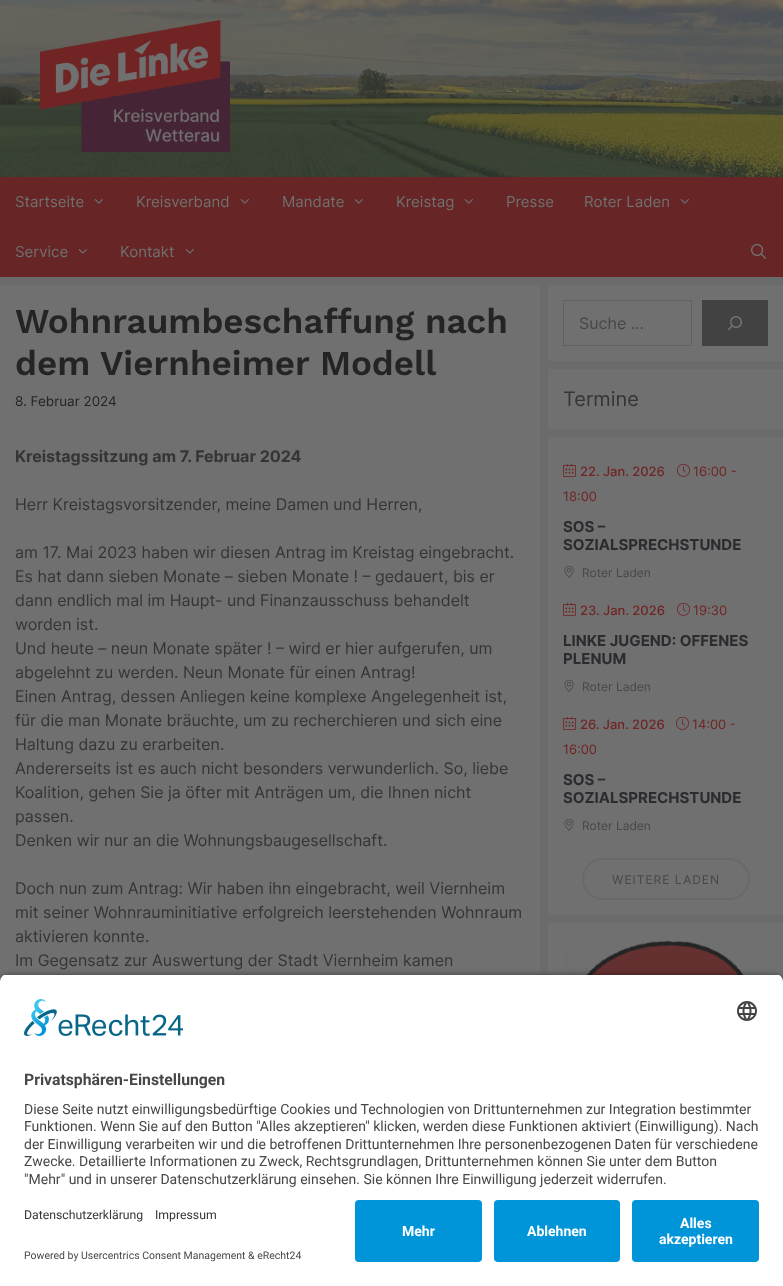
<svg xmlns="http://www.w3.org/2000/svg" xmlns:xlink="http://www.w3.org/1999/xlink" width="783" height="1286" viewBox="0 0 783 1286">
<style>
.cls-1{font:15px Inter;fill:#707070}
.cls-2{font:600 35px Work Sans;fill:#242424}
.cls-3{font:13.5px Inter;fill:#242424}
.cls-4{font:bold 16px Inter;fill:#353535}
.cls-5{font:16px Inter;fill:#353535}
.cls-6{font:16px Inter;fill:#474747}
.cls-7{font:20px Inter;fill:#353535}
.cls-8{font:500 13px Inter;fill:#702424}
.cls-9{font:13px Inter;fill:#702424}
.cls-10{font:bold 15px Inter;fill:#2b2c2f}
.cls-11{font:12px Inter;fill:#474747}
.cls-12{font:12px Inter;letter-spacing:1px;fill:#474747}
.cls-13{font:bold 15.75px Roboto;fill:#474747}
.cls-14{font:14px Roboto;fill:#474747}
.cls-15{font:12.25px Roboto;fill:#353535}
.cls-16{font:10.5px Roboto;fill:#474747}
.cls-17{font:bold 14px Roboto;fill:#ffffff}
</style>
<defs>
<clipPath id="clip1"><path d="M8 974H775C779.5 974 783 977.5 783 982V1192H0V982C0 977.5 3.5 974 8 974Z"/></clipPath>
</defs>
<rect width="100%" height="100%" fill="#6b6b6b"/>
<image xlink:href="image0.png" x="0" y="0" width="783" height="177"/>
<image xlink:href="image1.png" x="40" y="20" width="190" height="132"/>
<rect fill="#672525" x="0" y="177" width="783" height="100"/>
<image xlink:href="image2.png" x="94" y="199" width="9" height="5"/>
<image xlink:href="image2.png" x="240" y="199" width="9" height="5"/>
<image xlink:href="image2.png" x="354" y="199" width="9" height="5"/>
<image xlink:href="image2.png" x="464" y="199" width="9" height="5"/>
<image xlink:href="image2.png" x="680" y="199" width="9" height="5"/>
<image xlink:href="image2.png" x="78" y="249" width="9" height="5"/>
<image xlink:href="image2.png" x="185" y="249" width="9" height="5"/>
<image xlink:href="image3.png" x="751" y="243" width="15" height="16"/>
<rect fill="#707070" x="0" y="285" width="540" height="697"/>
<rect fill="#707070" x="548" y="285" width="235" height="76"/>
<rect fill="none" stroke="#616161" x="563.5" y="300.5" width="128" height="45"/>
<rect fill="#424242" x="702" y="300" width="66" height="46"/>
<image xlink:href="image4.png" x="727" y="316" width="16" height="15"/>
<rect fill="#707070" x="548" y="369" width="235" height="60"/>
<rect fill="#707070" x="548" y="437" width="235" height="478"/>
<image xlink:href="image5.png" x="563" y="463" width="13" height="14"/>
<image xlink:href="image6.png" x="677" y="463" width="13" height="14"/>
<image xlink:href="image7.png" x="564" y="566" width="10" height="12"/>
<image xlink:href="image5.png" x="563" y="602" width="13" height="14"/>
<image xlink:href="image6.png" x="677" y="602" width="13" height="14"/>
<image xlink:href="image7.png" x="564" y="680" width="10" height="12"/>
<image xlink:href="image5.png" x="563" y="716" width="13" height="14"/>
<image xlink:href="image6.png" x="676" y="716" width="13" height="14"/>
<image xlink:href="image7.png" x="564" y="819" width="10" height="12"/>
<rect fill="none" stroke="#696969" stroke-width="2" x="583" y="859" width="166" height="40" rx="20"/>
<rect fill="#707070" x="548" y="923" width="235" height="59"/>
<image xlink:href="image8.png" x="564" y="940" width="202" height="35"/>
<rect fill="#000000" fill-opacity="0.8" filter="blur(3.5px)" x="0" y="977" width="783" height="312" rx="8"/>
<g clip-path="url(#clip1)">
<rect fill="#ffffff" x="0" y="975" width="783" height="217"/>
</g>
<image xlink:href="image9.png" x="24" y="999" width="160" height="37"/>
<image xlink:href="image10.png" x="737" y="1001" width="20" height="20"/>
<rect fill="#ffffff" x="0" y="1192" width="783" height="94"/>
<rect fill="#0094d8" x="355" y="1200" width="127" height="62" rx="4"/>
<rect fill="#0094d8" x="494" y="1200" width="126" height="62" rx="4"/>
<rect fill="#0094d8" x="632" y="1200" width="127" height="62" rx="4"/>
<text class="cls-1" x="15" y="207">Startseite</text>
<text class="cls-1" x="136" y="207">Kreisverband</text>
<text class="cls-1" x="282" y="207">Mandate</text>
<text class="cls-1" x="396" y="207">Kreistag</text>
<text class="cls-1" x="506" y="207">Presse</text>
<text class="cls-1" x="584" y="207">Roter Laden</text>
<text class="cls-1" x="15" y="257">Service</text>
<text class="cls-1" x="120" y="257">Kontakt</text>
<text class="cls-2"><tspan x="15" y="333">Wohnraumbeschaffung nach</tspan><tspan x="15" y="375">dem Viernheimer Modell</tspan></text>
<text class="cls-3" x="15" y="406">8. Februar 2024</text>
<text class="cls-4" x="15" y="462">Kreistagssitzung am 7. Februar 2024</text>
<text class="cls-5" x="15" y="510">Herr Kreistagsvorsitzender, meine Damen und Herren,</text>
<text class="cls-5"><tspan x="15" y="558">am 17. Mai 2023 haben wir diesen Antrag im Kreistag eingebracht.</tspan><tspan x="15" y="582">Es hat dann sieben Monate – sieben Monate ! – gedauert, bis er</tspan><tspan x="15" y="606">dann endlich mal im Haupt- und Finanzausschuss behandelt</tspan><tspan x="15" y="630">worden ist.</tspan><tspan x="15" y="654">Und heute – neun Monate später ! – wird er hier aufgerufen, um</tspan><tspan x="15" y="678">abgelehnt zu werden. Neun Monate für einen Antrag!</tspan><tspan x="15" y="702">Einen Antrag, dessen Anliegen keine komplexe Angelegenheit ist,</tspan><tspan x="15" y="726">für die man Monate bräuchte, um zu recherchieren und sich eine</tspan><tspan x="15" y="750">Haltung dazu zu erarbeiten.</tspan><tspan x="15" y="774">Andererseits ist es auch nicht besonders verwunderlich. So, liebe</tspan><tspan x="15" y="798">Koalition, gehen Sie ja öfter mit Anträgen um, die Ihnen nicht</tspan><tspan x="15" y="822">passen.</tspan><tspan x="15" y="846">Denken wir nur an die Wohnungsbaugesellschaft.</tspan></text>
<text class="cls-5"><tspan x="15" y="894">Doch nun zum Antrag: Wir haben ihn eingebracht, weil Viernheim</tspan><tspan x="15" y="918">mit seiner Wohnrauminitiative erfolgreich leerstehenden Wohnraum</tspan><tspan x="15" y="942">aktivieren konnte.</tspan><tspan x="15" y="966">Im Gegensatz zur Auswertung der Stadt Viernheim kamen</tspan></text>
<text class="cls-6" x="579" y="329">Suche ...</text>
<text class="cls-7" x="563" y="406">Termine</text>
<text class="cls-8" x="580" y="476">22. Jan. 2026</text>
<text class="cls-9" x="693" y="476">16:00 -</text>
<text class="cls-9" x="563" y="501">18:00</text>
<text class="cls-10"><tspan x="563" y="532">SOS –</tspan><tspan x="563" y="550">SOZIALSPRECHSTUNDE</tspan></text>
<text class="cls-11" x="582" y="577">Roter Laden</text>
<text class="cls-8" x="580" y="615">23. Jan. 2026</text>
<text class="cls-9" x="693" y="615">19:30</text>
<text class="cls-10"><tspan x="563" y="646">LINKE JUGEND: OFFENES</tspan><tspan x="563" y="664">PLENUM</tspan></text>
<text class="cls-11" x="582" y="691">Roter Laden</text>
<text class="cls-8" x="580" y="729">26. Jan. 2026</text>
<text class="cls-9" x="692" y="729">14:00 -</text>
<text class="cls-9" x="563" y="754">16:00</text>
<text class="cls-10"><tspan x="563" y="785">SOS –</tspan><tspan x="563" y="803">SOZIALSPRECHSTUNDE</tspan></text>
<text class="cls-11" x="582" y="830">Roter Laden</text>
<text class="cls-12" x="612" y="884">WEITERE LADEN</text>
<text class="cls-13" x="24" y="1085">Privatsphären-Einstellungen</text>
<text class="cls-14"><tspan x="24" y="1114">Diese Seite nutzt einwilligungsbedürftige Cookies und Technologien von Drittunternehmen zur Integration bestimmter</tspan><tspan x="24" y="1131">Funktionen. Wenn Sie auf den Button "Alles akzeptieren" klicken, werden diese Funktionen aktiviert (Einwilligung). Nach</tspan><tspan x="24" y="1149">der Einwilligung verarbeiten wir und die betroffenen Drittunternehmen Ihre personenbezogenen Daten für verschiedene</tspan><tspan x="24" y="1166">Zwecke. Detaillierte Informationen zu Zweck, Rechtsgrundlagen, Drittunternehmen können Sie unter dem Button</tspan><tspan x="24" y="1184">"Mehr" und in unserer Datenschutzerklärung einsehen. Sie können Ihre Einwilligung jederzeit widerrufen.</tspan></text>
<text class="cls-15" x="24" y="1219">Datenschutzerklärung</text>
<text class="cls-15" x="155" y="1219">Impressum</text>
<text class="cls-16" x="24" y="1259">Powered by Usercentrics Consent Management &amp; eRecht24</text>
<text class="cls-17" x="402" y="1236">Mehr</text>
<text class="cls-17" x="527" y="1236">Ablehnen</text>
<text class="cls-17" x="680" y="1228">Alles</text>
<text class="cls-17" x="659" y="1244">akzeptieren</text>
</svg>
